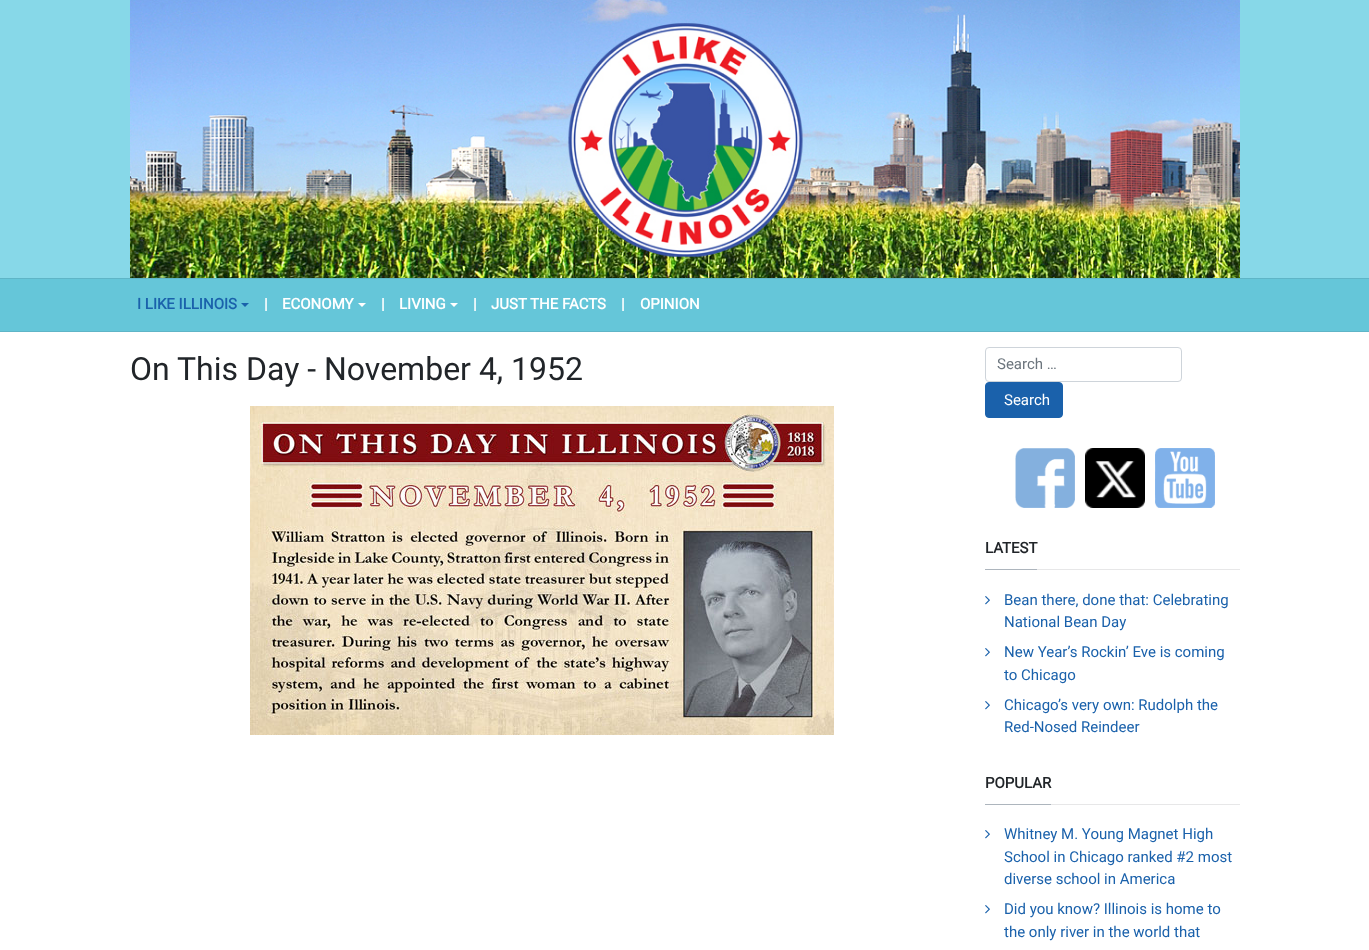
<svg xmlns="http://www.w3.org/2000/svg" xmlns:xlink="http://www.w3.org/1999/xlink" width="1369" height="950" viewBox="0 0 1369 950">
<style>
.cls-1{font:bold 15px Roboto;fill:#1a61ab}
.cls-2{font:bold 15px Roboto;fill:#ffffff}
.cls-3{font:32px Roboto;fill:#212529}
.cls-4{font:15px Roboto;fill:#6c757d}
.cls-5{font:15px Roboto;fill:#ffffff}
.cls-6{font:bold 15px Roboto;fill:#212529}
.cls-7{font:15px Roboto;fill:#1a61ab}
</style>
<rect width="100%" height="100%" fill="#ffffff"/>
<rect fill="#87d8e8" x="0" y="0" width="1369" height="278"/>
<image xlink:href="image0.png" x="130" y="0" width="1110" height="278"/>
<rect fill="#65c6d9" x="0" y="279" width="1369" height="52"/>
<rect fill="#5fb5c7" x="0" y="278" width="1369" height="1"/>
<rect fill="#5fb5c7" x="0" y="331" width="1369" height="1"/>
<path fill="#1a61ab" d="M241 303H249L245 307Z"/>
<path fill="#ffffff" d="M358 303H366L362 307Z"/>
<path fill="#ffffff" d="M450 303H458L454 307Z"/>
<image xlink:href="image1.png" x="250" y="406" width="584" height="329"/>
<rect fill="none" stroke="#ced4da" x="985.5" y="347.5" width="196" height="34" rx="3.5"/>
<rect fill="#1a61ab" stroke="#1a61ab" x="985.5" y="382.5" width="77" height="35" rx="3.5"/>
<image xlink:href="image2.png" x="1015" y="448" width="60" height="60"/>
<image xlink:href="image3.png" x="1085" y="448" width="60" height="60"/>
<image xlink:href="image4.png" x="1155" y="448" width="60" height="60"/>
<rect fill="#e7e7e8" x="1037" y="569" width="203" height="1"/>
<rect fill="#adb5bd" x="985" y="569" width="52" height="1"/>
<image xlink:href="image5.png" x="985" y="596" width="5" height="9"/>
<image xlink:href="image5.png" x="985" y="648" width="5" height="9"/>
<image xlink:href="image5.png" x="985" y="701" width="5" height="9"/>
<rect fill="#e7e7e8" x="1051" y="804" width="189" height="1"/>
<rect fill="#adb5bd" x="985" y="804" width="66" height="1"/>
<image xlink:href="image5.png" x="985" y="830" width="5" height="9"/>
<image xlink:href="image5.png" x="985" y="905" width="5" height="9"/>
<text class="cls-1" x="137" y="309">I LIKE ILLINOIS</text>
<text class="cls-2" x="264" y="309">|</text>
<text class="cls-2" x="282" y="309">ECONOMY</text>
<text class="cls-2" x="381" y="309">|</text>
<text class="cls-2" x="399" y="309">LIVING</text>
<text class="cls-2" x="473" y="309">|</text>
<text class="cls-2" x="491" y="309">JUST THE FACTS</text>
<text class="cls-2" x="621" y="309">|</text>
<text class="cls-2" x="640" y="309">OPINION</text>
<text class="cls-3" x="130" y="380">On This Day - November 4, 1952</text>
<text class="cls-4" x="997" y="369">Search …</text>
<text class="cls-5" x="1004" y="405">Search</text>
<text class="cls-6" x="985" y="553">LATEST</text>
<text class="cls-7"><tspan x="1004" y="605">Bean there, done that: Celebrating</tspan><tspan x="1004" y="627">National Bean Day</tspan></text>
<text class="cls-7"><tspan x="1004" y="657">New Year’s Rockin’ Eve is coming</tspan><tspan x="1004" y="680">to Chicago</tspan></text>
<text class="cls-7"><tspan x="1004" y="710">Chicago’s very own: Rudolph the</tspan><tspan x="1004" y="732">Red-Nosed Reindeer</tspan></text>
<text class="cls-6" x="985" y="788">POPULAR</text>
<text class="cls-7"><tspan x="1004" y="839">Whitney M. Young Magnet High</tspan><tspan x="1004" y="862">School in Chicago ranked #2 most</tspan><tspan x="1004" y="884">diverse school in America</tspan></text>
<text class="cls-7"><tspan x="1004" y="914">Did you know? Illinois is home to</tspan><tspan x="1004" y="937">the only river in the world that</tspan></text>
</svg>
